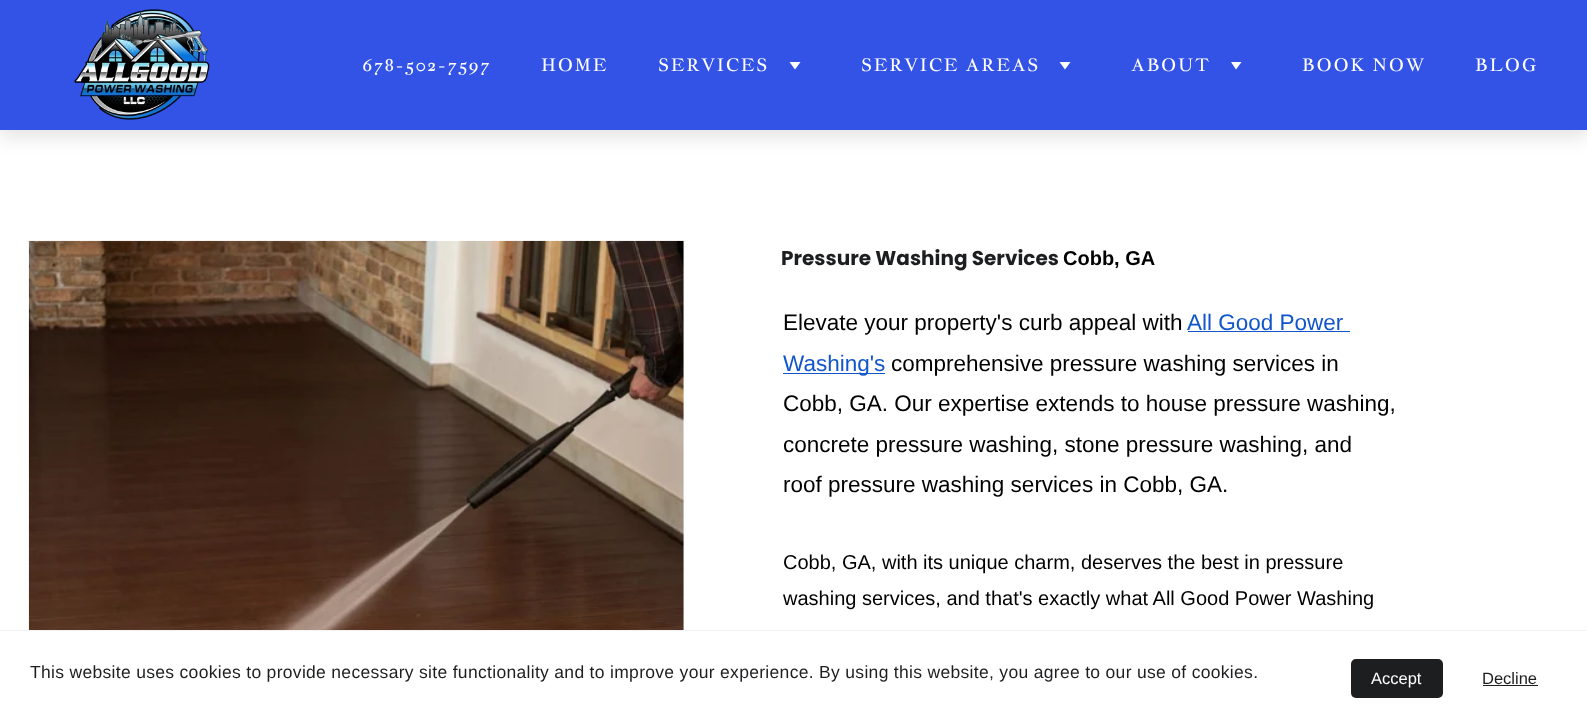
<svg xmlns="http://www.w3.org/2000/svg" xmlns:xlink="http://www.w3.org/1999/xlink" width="1587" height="725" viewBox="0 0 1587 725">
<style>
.cls-1{font:17.5px Jacques Francois;letter-spacing:1.75px;fill:#ffffff}
.cls-2{font:bold 20px Poppins;fill:#1d1e20}
.cls-3{font:bold 20px Liberation Sans;fill:#000000}
.cls-4{font:22.5px Liberation Sans;fill:#000000}
.cls-5{font:22.5px Liberation Sans;fill:#1155cc}
.cls-6{font:20px Liberation Sans;fill:#000000}
.cls-7{font:17.5px Liberation Sans;letter-spacing:0.31px;fill:#1d1e20}
.cls-8{font:16.5px Liberation Sans;fill:#ffffff}
.cls-9{font:16.5px Liberation Sans;fill:#1d1e20}
</style>
<rect width="100%" height="100%" fill="#ffffff"/>
<rect fill="#000000" fill-opacity="0.1" filter="blur(9px)" x="0" y="8" width="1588" height="130"/>
<rect fill="#3253e6" x="0" y="0" width="1587" height="130"/>
<image xlink:href="image0.png" x="74" y="9" width="136" height="111"/>
<path fill="#ffffff" d="M795 69.5L789.5 62H800.5Z"/>
<path fill="#ffffff" d="M1065 69.5L1059.5 62H1070.5Z"/>
<path fill="#ffffff" d="M1236 69.5L1231 62H1241.5Z"/>
<image xlink:href="image1.png" x="28" y="240" width="656" height="390"/>
<rect fill="#1155cc" x="1188" y="331" width="162" height="1"/>
<rect fill="#1155cc" x="783" y="373" width="102" height="1"/>
<rect fill="#f2f3f6" x="0" y="630" width="1587" height="1"/>
<rect fill="#1d1e20" x="1351" y="659" width="92" height="39" rx="5"/>
<rect fill="#1d1e20" x="1483" y="685" width="55" height="1"/>
<text class="cls-1" x="363" y="71">678-502-7597</text>
<text class="cls-1" x="541" y="71">HOME</text>
<text class="cls-1" x="658" y="71">SERVICES</text>
<text class="cls-1" x="861" y="71">SERVICE AREAS</text>
<text class="cls-1" x="1131" y="71">ABOUT</text>
<text class="cls-1" x="1302" y="71">BOOK NOW</text>
<text class="cls-1" x="1475" y="71">BLOG</text>
<text class="cls-2" x="781" y="265">Pressure Washing Services</text>
<text class="cls-3" x="1063" y="265">Cobb, GA</text>
<text class="cls-4" x="783" y="330">Elevate your property's curb appeal with</text>
<text class="cls-5" x="1187" y="330">All Good Power</text>
<text class="cls-5" x="783" y="371">Washing's</text>
<text class="cls-4" x="891" y="371">comprehensive pressure washing services in</text>
<text class="cls-4"><tspan x="783" y="411">Cobb, GA. Our expertise extends to house pressure washing,</tspan><tspan x="783" y="452">concrete pressure washing, stone pressure washing, and</tspan><tspan x="783" y="492">roof pressure washing services in Cobb, GA.</tspan></text>
<text class="cls-6"><tspan x="783" y="569">Cobb, GA, with its unique charm, deserves the best in pressure</tspan><tspan x="783" y="605">washing services, and that's exactly what All Good Power Washing</tspan></text>
<text class="cls-7" x="30" y="678">This website uses cookies to provide necessary site functionality and to improve your experience. By using this website, you agree to our use of cookies.</text>
<text class="cls-8" x="1371" y="684">Accept</text>
<text class="cls-9" x="1482" y="684">Decline</text>
</svg>
